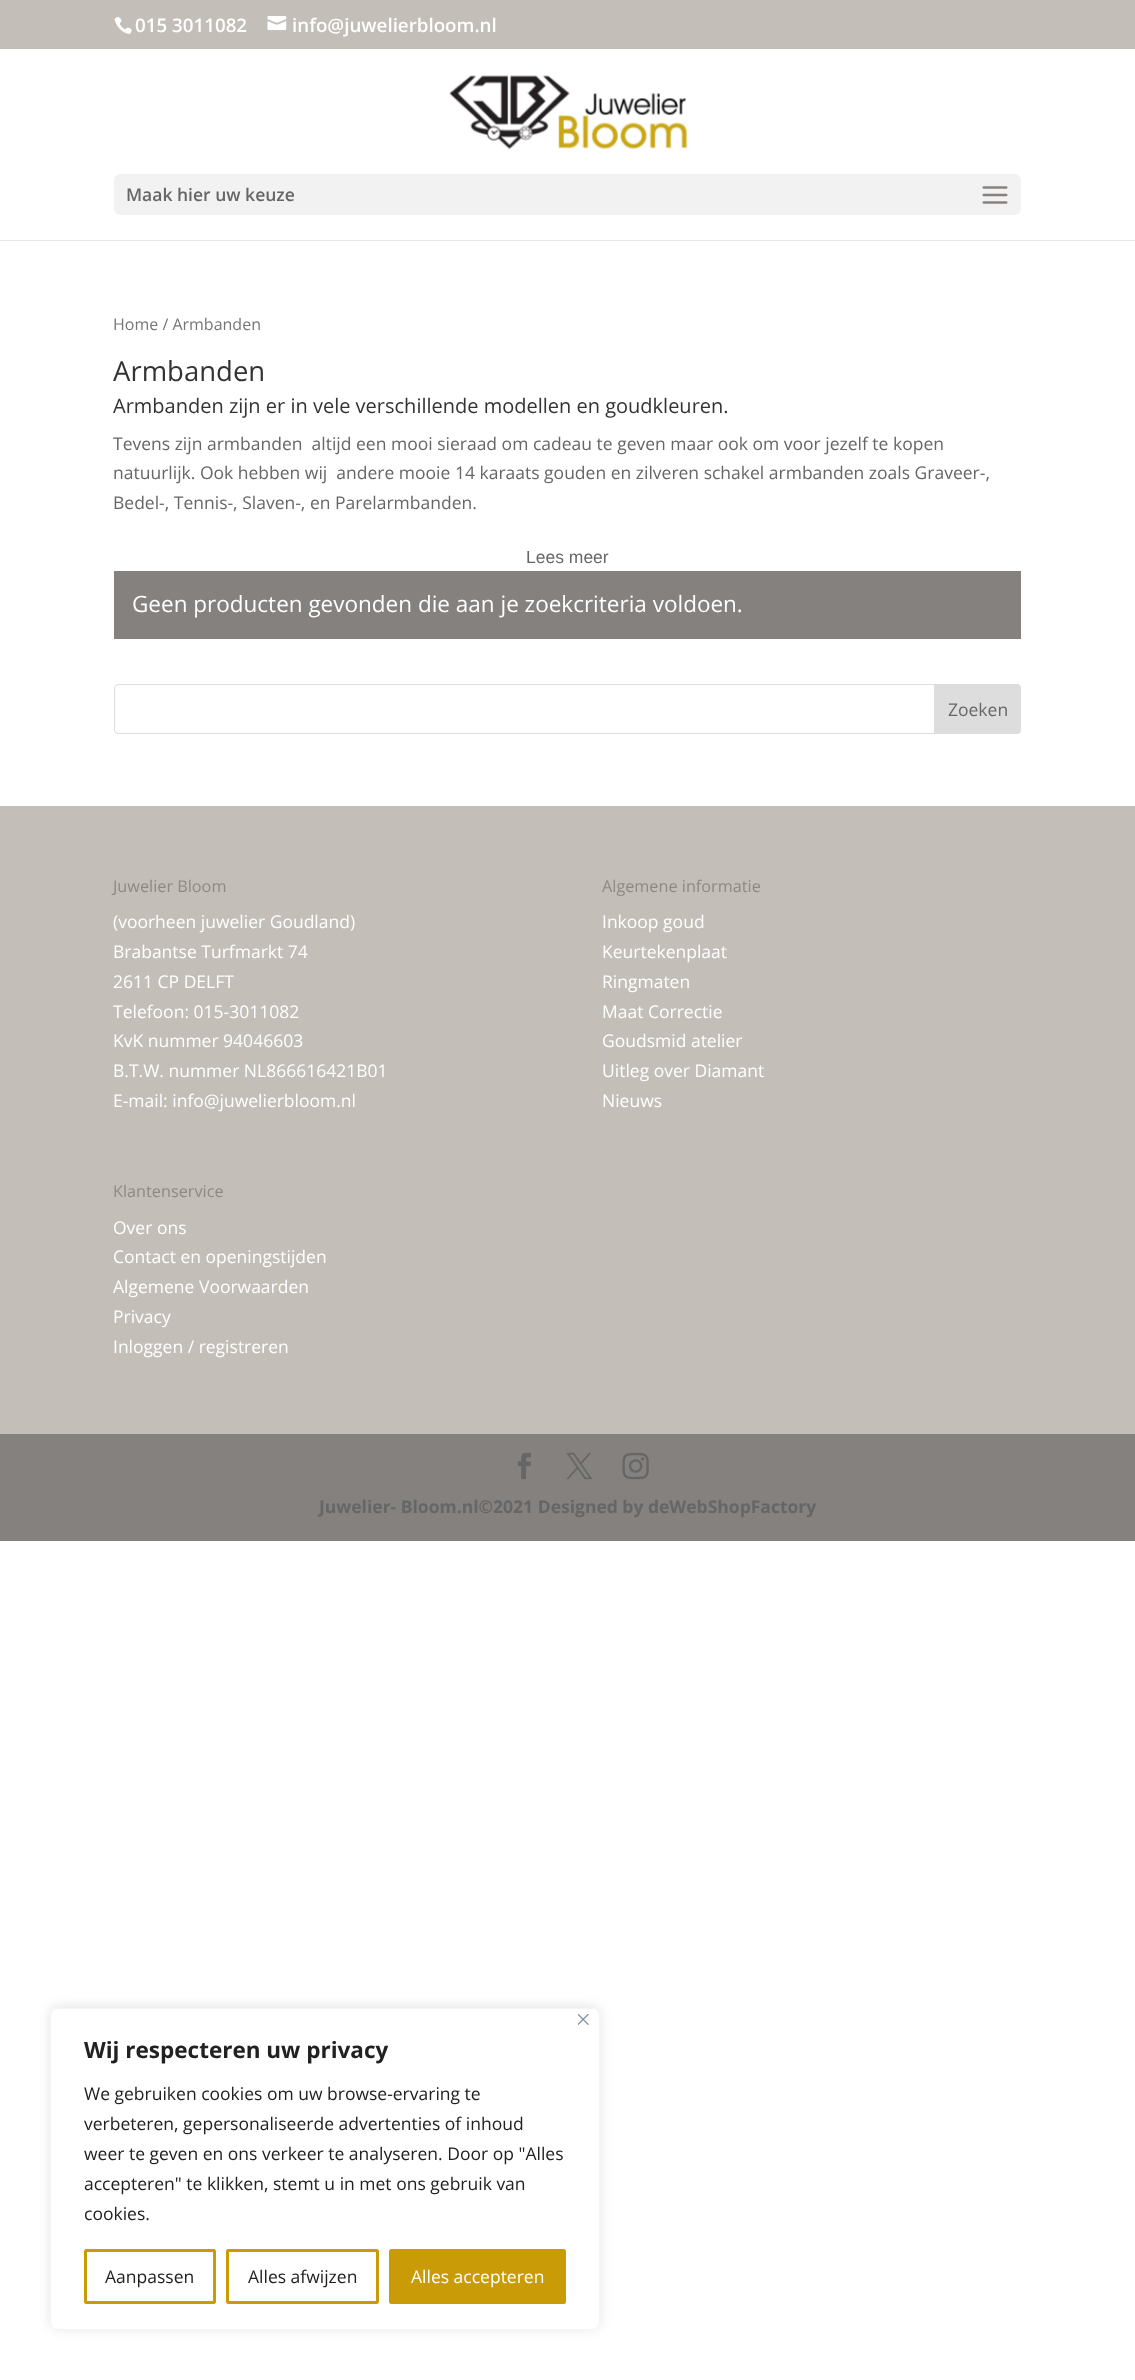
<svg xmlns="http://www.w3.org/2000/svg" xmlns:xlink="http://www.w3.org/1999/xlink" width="1135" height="2380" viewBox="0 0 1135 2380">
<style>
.cls-1{font:600 18.75px Open Sans;fill:#ffffff}
.cls-2{font:600 17.5px Open Sans;fill:#666666}
.cls-3{font:16px Open Sans;fill:#767676}
.cls-4{font:27.5px Open Sans;fill:#333333}
.cls-5{font:20px Open Sans;fill:#333333}
.cls-6{font:17.5px Open Sans;fill:#666666}
.cls-7{font:17.5px Liberation Sans;fill:#666666}
.cls-8{font:22.5px Open Sans;fill:#ffffff}
.cls-9{font:16.25px Open Sans;fill:#8e8984}
.cls-10{font:17.5px Open Sans;fill:#ffffff}
.cls-11{font:bold 17.5px Open Sans;fill:#666666}
.cls-12{font:bold 22.5px Open Sans;fill:#212121}
.cls-13{font:17.5px Open Sans;fill:#212121}
</style>
<defs>
<clipPath id="clip1"><path d="M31 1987H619V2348H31ZM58 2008H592C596.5 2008 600 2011.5 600 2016V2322C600 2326.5 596.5 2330 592 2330H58C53.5 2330 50 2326.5 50 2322V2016C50 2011.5 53.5 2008 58 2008Z" clip-rule="evenodd"/></clipPath>
</defs>
<rect width="100%" height="100%" fill="#ffffff"/>
<rect fill="#c4beb9" x="0" y="0" width="1135" height="49"/>
<image xlink:href="image0.png" x="114" y="17" width="18" height="17"/>
<image xlink:href="image1.png" x="267" y="16" width="20" height="15"/>
<rect fill="#e6e6e6" x="0" y="240" width="1135" height="1"/>
<image xlink:href="image2.png" x="449" y="75" width="239" height="75"/>
<rect fill="#f2f2f2" x="114" y="174" width="907" height="41" rx="6"/>
<image xlink:href="image3.png" x="982" y="186" width="26" height="18"/>
<rect fill="#85817e" x="114" y="571" width="907" height="68"/>
<rect fill="none" stroke="#dddddd" x="114.5" y="684.5" width="906" height="49" rx="3.5"/>
<path fill="#dddddd" stroke="#dddddd" d="M934.5 684.5H1017C1019 684.5 1020.5 686 1020.5 688V730C1020.5 732 1019 733.5 1017 733.5H934.5Z"/>
<rect fill="#c4beb9" x="0" y="806" width="1135" height="628"/>
<rect fill="#85817e" x="0" y="1434" width="1135" height="107"/>
<image xlink:href="image4.png" x="517" y="1452" width="14" height="28"/>
<image xlink:href="image5.png" x="566" y="1452" width="26" height="28"/>
<image xlink:href="image6.png" x="622" y="1452" width="27" height="28"/>
<g clip-path="url(#clip1)">
<rect fill="#acabab" fill-opacity="0.3" filter="blur(6px)" x="50" y="2006" width="550" height="323" rx="8"/>
</g>
<rect fill="none" stroke="#f4f4f4" x="50.5" y="2008.5" width="549" height="321" rx="7.5"/>
<image xlink:href="image7.png" x="578" y="2014" width="11" height="11"/>
<rect fill="none" stroke="#c99c07" stroke-width="3" x="85.5" y="2250.5" width="129" height="52" rx="1"/>
<rect fill="none" stroke="#c99c07" stroke-width="3" x="227.5" y="2250.5" width="150" height="52" rx="1"/>
<rect fill="#c99c07" stroke="#c99c07" stroke-width="3" x="390.5" y="2250.5" width="174" height="52" rx="1"/>
<text class="cls-1" x="135" y="32">015 3011082</text>
<text class="cls-1" x="292" y="32">info@juwelierbloom.nl</text>
<text class="cls-2" x="126" y="201">Maak hier uw keuze</text>
<text class="cls-3" x="113" y="330">Home / Armbanden</text>
<text class="cls-4" x="113" y="381">Armbanden</text>
<text class="cls-5" x="113" y="413">Armbanden zijn er in vele verschillende modellen en goudkleuren.</text>
<text class="cls-6" xml:space="preserve"><tspan x="113" y="450">Tevens zijn armbanden  altijd een mooi sieraad om cadeau te geven maar ook om voor jezelf te kopen</tspan><tspan x="113" y="479">natuurlijk. Ook hebben wij  andere mooie 14 karaats gouden en zilveren schakel armbanden zoals Graveer-,</tspan><tspan x="113" y="509">Bedel-, Tennis-, Slaven-, en Parelarmbanden.</tspan></text>
<text class="cls-7" x="526" y="563">Lees meer</text>
<text class="cls-8" x="132" y="612">Geen producten gevonden die aan je zoekcriteria voldoen.</text>
<text class="cls-6" x="948" y="716">Zoeken</text>
<text class="cls-9" x="113" y="892">Juwelier Bloom</text>
<text class="cls-10"><tspan x="113" y="928">(voorheen juwelier Goudland)</tspan><tspan x="113" y="958">Brabantse Turfmarkt 74</tspan><tspan x="113" y="988">2611 CP DELFT</tspan><tspan x="113" y="1018">Telefoon: 015-3011082</tspan><tspan x="113" y="1047">KvK nummer 94046603</tspan><tspan x="113" y="1077">B.T.W. nummer NL866616421B01</tspan><tspan x="113" y="1107">E-mail: info@juwelierbloom.nl</tspan></text>
<text class="cls-9" x="602" y="892">Algemene informatie</text>
<text class="cls-10"><tspan x="602" y="928">Inkoop goud</tspan><tspan x="602" y="958">Keurtekenplaat</tspan><tspan x="602" y="988">Ringmaten</tspan><tspan x="602" y="1018">Maat Correctie</tspan><tspan x="602" y="1047">Goudsmid atelier</tspan><tspan x="602" y="1077">Uitleg over Diamant</tspan><tspan x="602" y="1107">Nieuws</tspan></text>
<text class="cls-9" x="113" y="1197">Klantenservice</text>
<text class="cls-10"><tspan x="113" y="1234">Over ons</tspan><tspan x="113" y="1263">Contact en openingstijden</tspan><tspan x="113" y="1293">Algemene Voorwaarden</tspan><tspan x="113" y="1323">Privacy</tspan><tspan x="113" y="1353">Inloggen / registreren</tspan></text>
<text class="cls-11" x="319" y="1513">Juwelier- Bloom.nl©2021 Designed by deWebShopFactory</text>
<text class="cls-12" x="84" y="2058">Wij respecteren uw privacy</text>
<text class="cls-13"><tspan x="84" y="2100">We gebruiken cookies om uw browse-ervaring te</tspan><tspan x="84" y="2130">verbeteren, gepersonaliseerde advertenties of inhoud</tspan><tspan x="84" y="2160">weer te geven en ons verkeer te analyseren. Door op "Alles</tspan><tspan x="84" y="2190">accepteren" te klikken, stemt u in met ons gebruik van</tspan><tspan x="84" y="2220">cookies.</tspan></text>
<text class="cls-13" x="105" y="2283">Aanpassen</text>
<text class="cls-13" x="248" y="2283">Alles afwijzen</text>
<text class="cls-10" x="411" y="2283">Alles accepteren</text>
</svg>
